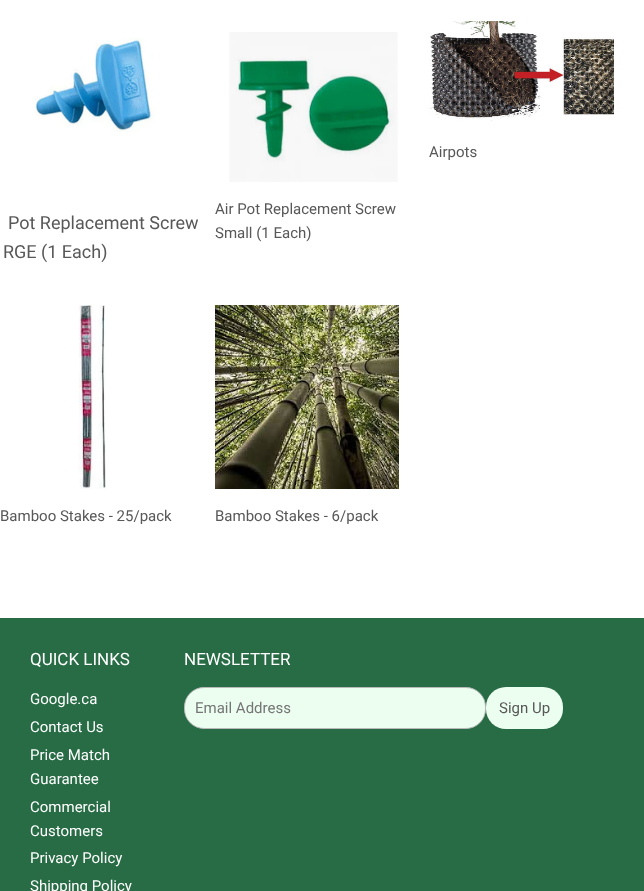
<svg xmlns="http://www.w3.org/2000/svg" xmlns:xlink="http://www.w3.org/1999/xlink" width="644" height="891" viewBox="0 0 644 891">
<style>
.cls-1{font:15px Roboto;fill:#585858}
.cls-2{font:18px Roboto;fill:#585858}
.cls-3{font:17px Roboto;fill:#ffffff}
.cls-4{font:15px Roboto;fill:#ffffff}
.cls-5{font:15px Roboto;fill:#757575}
</style>
<rect width="100%" height="100%" fill="#ffffff"/>
<image xlink:href="image0.png" x="429" y="21" width="185" height="101"/>
<image xlink:href="image1.png" x="34" y="38" width="120" height="94"/>
<image xlink:href="image2.png" x="229" y="32" width="169" height="150"/>
<image xlink:href="image3.png" x="78" y="305" width="28" height="184"/>
<image xlink:href="image4.png" x="215" y="305" width="184" height="184"/>
<rect fill="#276c44" x="0" y="618" width="644" height="273"/>
<rect fill="#ecfef0" stroke="#b9b9b9" x="184.5" y="687.5" width="301" height="41" rx="19.5"/>
<rect fill="#ecfef0" x="486" y="687" width="77" height="42" rx="20"/>
<text class="cls-1" x="429" y="157">Airpots</text>
<text class="cls-2" x="8" y="229">Pot Replacement Screw</text>
<text class="cls-2" x="3" y="258">RGE (1 Each)</text>
<text class="cls-1"><tspan x="215" y="214">Air Pot Replacement Screw</tspan><tspan x="215" y="238">Small (1 Each)</tspan></text>
<text class="cls-1" x="0" y="521">Bamboo Stakes - 25/pack</text>
<text class="cls-1" x="215" y="521">Bamboo Stakes - 6/pack</text>
<text class="cls-3" x="30" y="665">QUICK LINKS</text>
<text class="cls-4"><tspan x="30" y="704">Google.ca</tspan><tspan x="30" y="732">Contact Us</tspan><tspan x="30" y="760">Price Match</tspan><tspan x="30" y="784">Guarantee</tspan><tspan x="30" y="812">Commercial</tspan><tspan x="30" y="836">Customers</tspan><tspan x="30" y="863">Privacy Policy</tspan><tspan x="30" y="891">Shipping Policy</tspan></text>
<text class="cls-3" x="184" y="665">NEWSLETTER</text>
<text class="cls-5" x="195" y="713">Email Address</text>
<text class="cls-1" x="499" y="713">Sign Up</text>
</svg>
